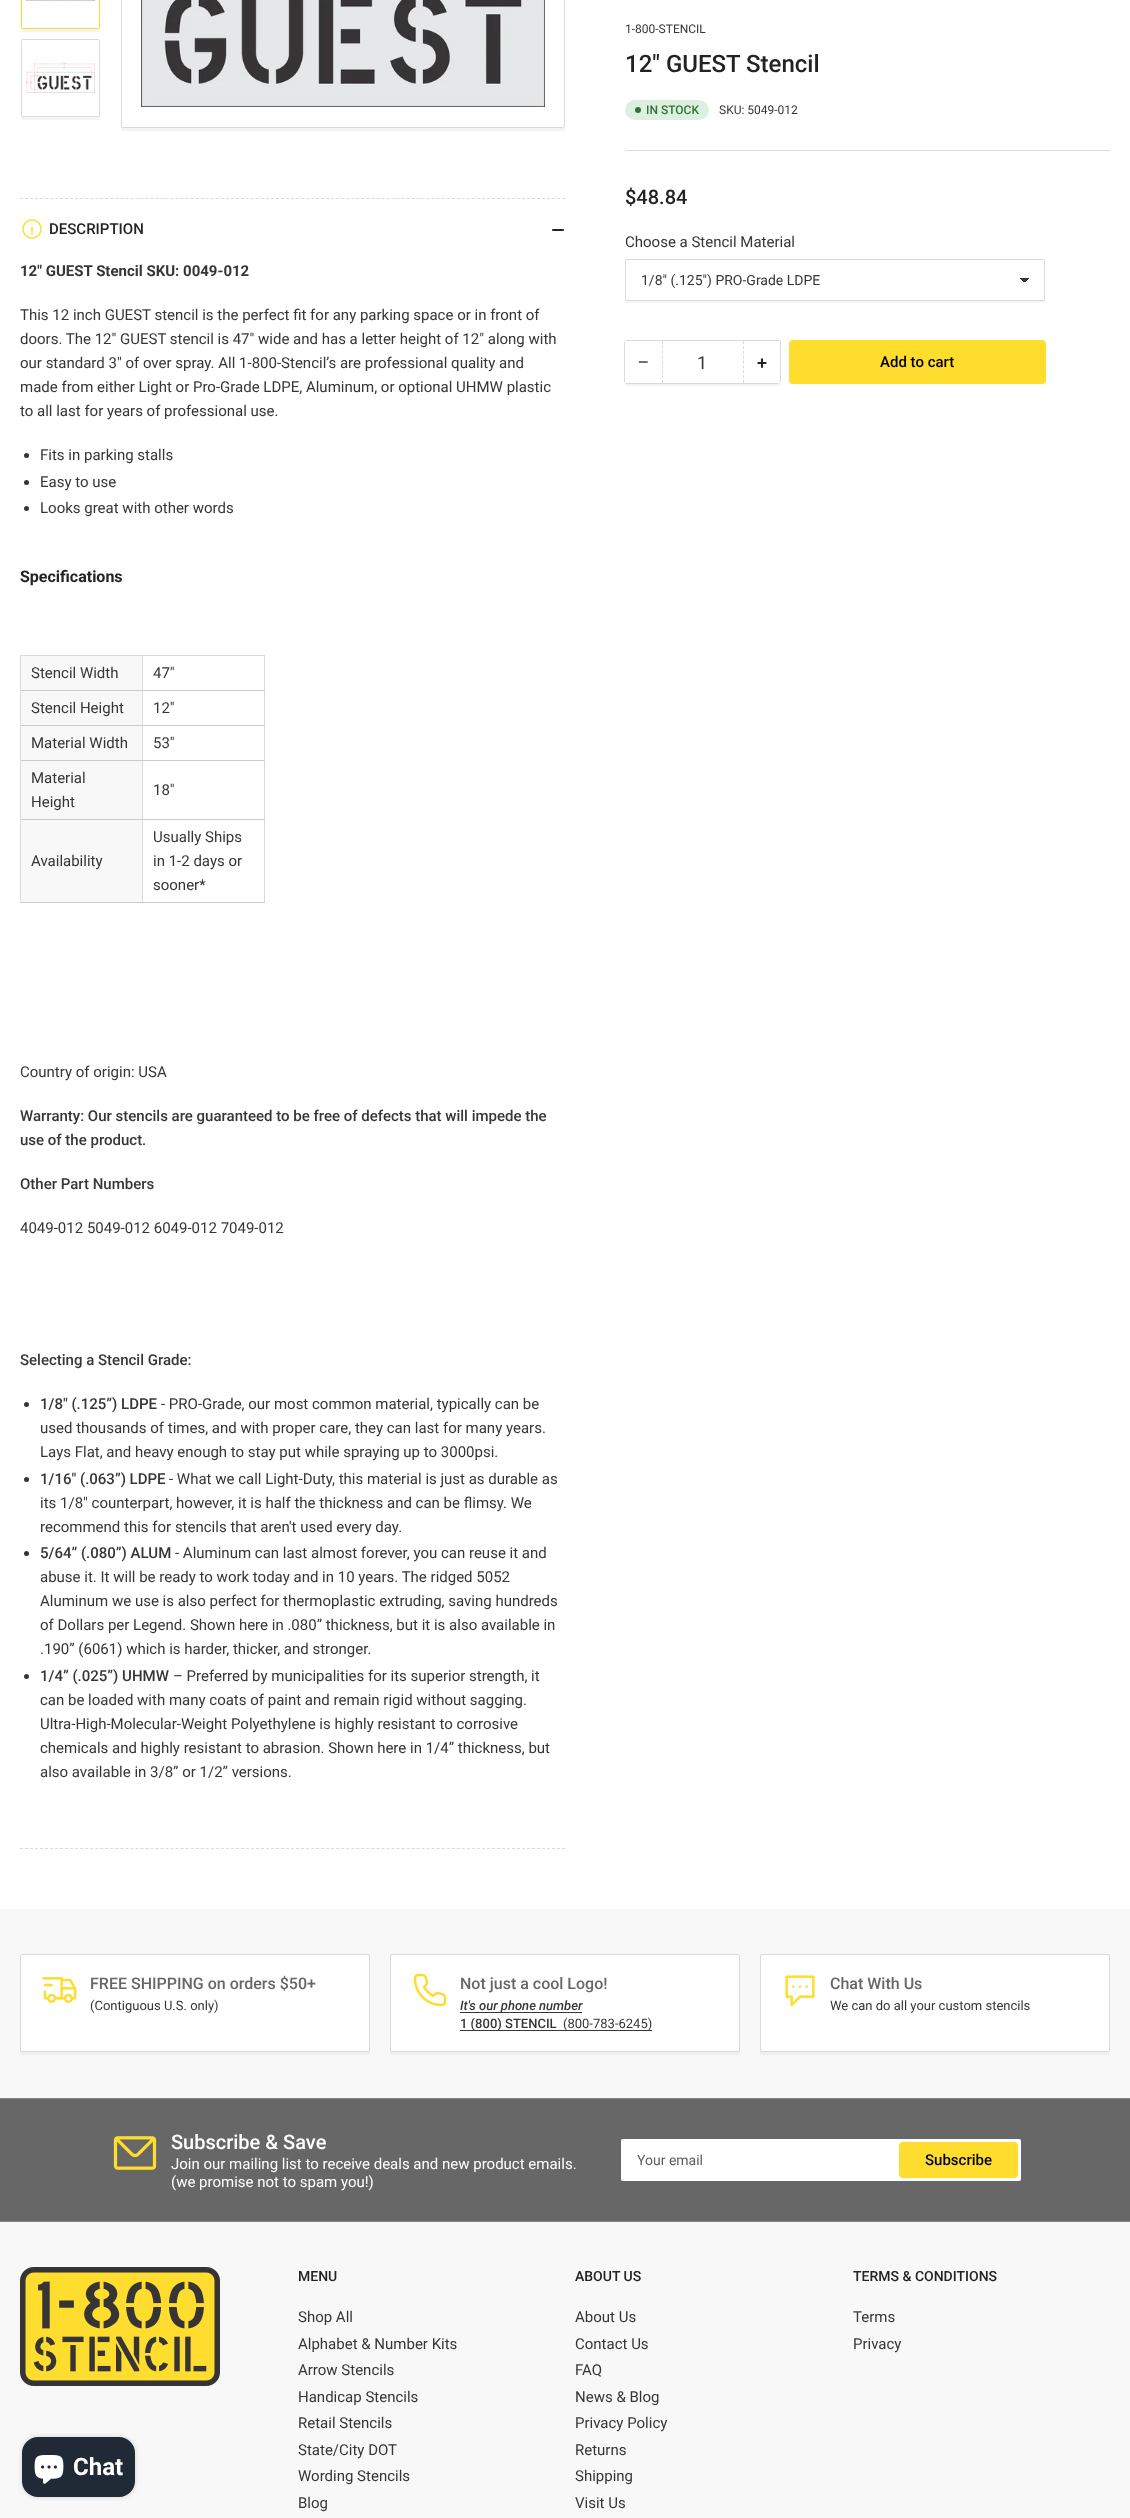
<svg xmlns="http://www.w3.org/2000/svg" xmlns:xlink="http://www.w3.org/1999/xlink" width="1130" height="2518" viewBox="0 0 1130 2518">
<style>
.cls-1{font:12px Roboto;fill:#363636}
.cls-2{font:500 24px Roboto;fill:#232323}
.cls-3{font:500 12px Roboto;fill:#337239}
.cls-4{font:500 20px Roboto;fill:#232323}
.cls-5{font:15px Roboto;fill:#363636}
.cls-6{font:14px Roboto;fill:#363636}
.cls-7{font:18px Liberation Sans;fill:#232323}
.cls-8{font:18px Roboto;fill:#363636}
.cls-9{font:500 18px Roboto;fill:#232323}
.cls-10{font:500 15px Roboto;fill:#000000}
.cls-11{font:500 15px Roboto;fill:#232323}
.cls-12{font:bold 15px Roboto;fill:#363636}
.cls-13{font:bold 16px Roboto;fill:#232323}
.cls-14{font:500 15px Roboto;fill:#363636}
.cls-15{font:500 16px Roboto;fill:#676767}
.cls-16{font:13px Roboto;fill:#363636}
.cls-17{font:italic 500 13px Roboto;fill:#363636}
.cls-18{font:500 13px Roboto;fill:#363636}
.cls-19{font:500 20px Roboto;fill:#ffffff}
.cls-20{font:15px Roboto;fill:#ffffff}
.cls-21{font:14px Roboto;fill:#5e5e5e}
.cls-22{font:500 14px Roboto;fill:#232323}
.cls-23{font:bold 24px Roboto;fill:#ffffff}
</style>
<defs>
<linearGradient id="g1" gradientUnits="userSpaceOnUse" x1="61" y1="148" x2="61" y2="113"><stop offset="0" stop-color="#ffffff"/><stop offset="1" stop-color="#ffffff" stop-opacity="0"/></linearGradient>
<linearGradient id="g2" gradientUnits="userSpaceOnUse" x1="1024" y1="278" x2="1029" y2="283"><stop offset="0.5" stop-color="#363636"/><stop offset="0.5" stop-color="#ffffff"/></linearGradient>
<linearGradient id="g3" gradientUnits="userSpaceOnUse" x1="1019" y1="283" x2="1024" y2="278"><stop offset="0.5" stop-color="#ffffff"/><stop offset="0.5" stop-color="#363636"/></linearGradient>
</defs>
<rect width="100%" height="100%" fill="#ffffff"/>
<path fill="#f4f4f4" d="M21 27V30C21 31 22 32 23 32H98C99 32 100 31 100 30V27C100 28 99 29 98 29H23L22 28Z"/>
<rect fill="#ffffff" stroke="#fedd2f" x="21.5" y="-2.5" width="78" height="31" rx="1.5"/>
<image xlink:href="image0.png" x="26" y="0" width="69" height="1"/>
<path fill="#f4f4f4" d="M21 115V118C21 119 22 120 23 120H98C99 120 100 119 100 118V115C100 116 99 117 98 117H23L22 116Z"/>
<rect fill="#ffffff" stroke="#dadada" x="21.5" y="39.5" width="78" height="77" rx="1.5"/>
<image xlink:href="image1.png" x="26" y="63" width="69" height="30"/>
<rect fill="url(#g1)" x="22" y="116" width="77" height="1"/>
<path fill="#f4f4f4" d="M121 126V129C121 130 122 131 123 131H563C564 131 565 130 565 129V126C565 127 564 128 563 128H123C122 128 121 127 121 126Z"/>
<rect fill="none" stroke="#dadada" x="121.5" y="-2.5" width="443" height="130" rx="1.5"/>
<image xlink:href="image2.png" x="141" y="0" width="404" height="107"/>
<rect fill="#dadada" x="625" y="150" width="485" height="1"/>
<rect fill="#ddf0df" x="625" y="100" width="84" height="20" rx="10"/>
<circle fill="#337239" cx="638" cy="110" r="3"/>
<path fill="#f4f4f4" d="M625 299V302L627 303H1043C1045 303 1045 301 1045 299C1045 300 1044 301 1043 301H627C626 301 625 300 625 299Z"/>
<rect fill="url(#g2)" x="1024" y="278" width="5" height="4"/>
<rect fill="url(#g3)" x="1019" y="278" width="5" height="4"/>
<rect fill="none" stroke="#dadada" x="625.5" y="259.5" width="419" height="41" rx="1.5"/>
<path fill="#f4f4f4" d="M625 381V384C625 385 626 386 627 386H778C779 386 780 385 780 384V381C780 382 779 383 778 383H627C626 383 625 382 625 381Z"/>
<rect fill="none" stroke="#dadada" x="624.5" y="340.5" width="156" height="43" rx="2.5"/>
<rect fill="#ffffff" x="625" y="341" width="2" height="42"/>
<path fill="none" stroke="#dadada" stroke-dasharray="3 1.88" d="M743.5 341V383"/>
<path fill="none" stroke="#dadada" stroke-dasharray="3 1.88" d="M662.5 341V383"/>
<rect fill="#ffffff" x="778" y="341" width="2" height="42"/>
<rect fill="none" stroke="#fedd2f" x="789.5" y="340.5" width="256" height="43" rx="2.5"/>
<rect fill="#fedd2f" x="790" y="341" width="255" height="42" rx="2"/>
<path fill="none" stroke="#dadada" stroke-dasharray="3 2.02" d="M20 198.5H565"/>
<path fill="none" stroke="#dadada" stroke-dasharray="3 2.02" d="M20 1848.5H565"/>
<image xlink:href="image3.png" x="22" y="219" width="20" height="20"/>
<rect fill="#232323" x="552" y="229" width="7" height="2" rx="1"/>
<rect fill="#232323" x="556" y="229" width="8" height="2" rx="1"/>
<circle fill="#363636" cx="26.5" cy="455.5" r="2.5"/>
<circle fill="#363636" cx="26.5" cy="482.5" r="2.5"/>
<circle fill="#363636" cx="26.5" cy="508.5" r="2.5"/>
<rect fill="#f8f8f8" x="21" y="656" width="121" height="34"/>
<rect fill="#dadada" x="142" y="655" width="123" height="1"/>
<rect fill="#dadada" x="264" y="690" width="1" height="213"/>
<rect fill="#dadada" x="264" y="655" width="1" height="36"/>
<rect fill="#cccccc" x="142" y="902" width="123" height="1"/>
<rect fill="#dadada" x="142" y="819" width="1" height="84"/>
<rect fill="#cccccc" x="142" y="819" width="123" height="1"/>
<rect fill="#dadada" x="142" y="760" width="1" height="60"/>
<rect fill="#cccccc" x="142" y="760" width="123" height="1"/>
<rect fill="#dadada" x="142" y="725" width="1" height="36"/>
<rect fill="#cccccc" x="142" y="725" width="123" height="1"/>
<rect fill="#dadada" x="142" y="690" width="1" height="36"/>
<rect fill="#cccccc" x="142" y="690" width="123" height="1"/>
<rect fill="#dadada" x="142" y="655" width="1" height="36"/>
<rect fill="#dadada" x="20" y="655" width="123" height="1"/>
<rect fill="#cccccc" x="20" y="902" width="123" height="1"/>
<rect fill="#dadada" x="20" y="819" width="1" height="84"/>
<rect fill="#cccccc" x="20" y="819" width="123" height="1"/>
<rect fill="#dadada" x="20" y="760" width="1" height="60"/>
<rect fill="#cccccc" x="20" y="760" width="123" height="1"/>
<rect fill="#dadada" x="20" y="725" width="1" height="36"/>
<rect fill="#cccccc" x="20" y="725" width="123" height="1"/>
<rect fill="#dadada" x="20" y="690" width="1" height="36"/>
<rect fill="#cccccc" x="20" y="690" width="123" height="1"/>
<rect fill="#dadada" x="20" y="655" width="1" height="36"/>
<rect fill="#f8f8f8" x="21" y="691" width="121" height="34"/>
<rect fill="#f8f8f8" x="21" y="726" width="121" height="34"/>
<rect fill="#f8f8f8" x="21" y="761" width="121" height="58"/>
<rect fill="#f8f8f8" x="21" y="820" width="121" height="82"/>
<circle fill="#363636" cx="26.5" cy="1404.5" r="2.5"/>
<circle fill="#363636" cx="26.5" cy="1479.5" r="2.5"/>
<circle fill="#363636" cx="26.5" cy="1553.5" r="2.5"/>
<circle fill="#363636" cx="26.5" cy="1676.5" r="2.5"/>
<rect fill="#f8f8f8" x="0" y="1909" width="1130" height="189"/>
<path fill="#efefef" d="M20 2050V2053C20 2054 21 2055 22 2055H368C369 2055 370 2054 370 2053V2050C370 2051 369 2052 368 2052H22C21 2052 20 2051 20 2050Z"/>
<rect fill="#ffffff" stroke="#dadada" x="20.5" y="1954.5" width="349" height="97" rx="1.5"/>
<image xlink:href="image4.png" x="42" y="1977" width="35" height="26"/>
<path fill="#efefef" d="M390 2050V2053C390 2054 391 2055 392 2055H738C739 2055 740 2054 740 2053V2050C740 2051 739 2052 738 2052H392C391 2052 390 2051 390 2050Z"/>
<rect fill="#ffffff" stroke="#dadada" x="390.5" y="1954.5" width="349" height="97" rx="1.5"/>
<image xlink:href="image5.png" x="413" y="1973" width="34" height="34"/>
<rect fill="#363636" x="460" y="2012" width="122" height="1"/>
<rect fill="#363636" x="460" y="2030" width="192" height="1"/>
<path fill="#efefef" d="M760 2050V2053C760 2054 761 2055 762 2055H1108C1109 2055 1110 2054 1110 2053V2050C1110 2051 1109 2052 1108 2052H762C761 2052 760 2051 760 2050Z"/>
<rect fill="#ffffff" stroke="#dadada" x="760.5" y="1954.5" width="349" height="97" rx="1.5"/>
<image xlink:href="image6.png" x="785" y="1975" width="30" height="32"/>
<rect fill="#676767" x="0" y="2099" width="1130" height="122"/>
<rect fill="#858585" x="0" y="2098" width="1130" height="1"/>
<rect fill="#858585" x="0" y="2221" width="1130" height="1"/>
<image xlink:href="image7.png" x="113" y="2136" width="44" height="34"/>
<rect fill="#ffffff" x="621" y="2139" width="400" height="42" rx="2"/>
<rect fill="none" stroke="#ffffff" stroke-opacity="0.2" x="621.5" y="2139.5" width="399" height="41" rx="1.5"/>
<rect fill="none" stroke="#fedd2f" x="899.5" y="2142.5" width="118" height="35" rx="2.5"/>
<rect fill="#fedd2f" x="900" y="2143" width="117" height="34" rx="2"/>
<rect fill="#f8f8f8" x="0" y="2222" width="1130" height="296"/>
<image xlink:href="image8.png" x="20" y="2267" width="200" height="119"/>
<rect fill="#000000" fill-opacity="0.15" filter="blur(2.5px)" x="22" y="2437" width="113" height="60" rx="16"/>
<rect fill="#202a36" x="22" y="2437" width="113" height="60" rx="16"/>
<image xlink:href="image9.png" x="34" y="2455" width="30" height="29"/>
<text class="cls-1" x="625" y="33">1-800-STENCIL</text>
<text class="cls-2" x="625" y="72">12" GUEST Stencil</text>
<text class="cls-3" x="646" y="114">IN STOCK</text>
<text class="cls-1" x="719" y="114">SKU: 5049-012</text>
<text class="cls-4" x="625" y="204">$48.84</text>
<text class="cls-5" x="625" y="247">Choose a Stencil Material</text>
<text class="cls-6" x="641" y="285">1/8" (.125") PRO-Grade LDPE</text>
<text class="cls-7" x="638" y="368">−</text>
<text class="cls-8" x="697" y="369">1</text>
<text class="cls-9" x="757" y="369">+</text>
<text class="cls-10" x="880" y="367">Add to cart</text>
<text class="cls-11" x="49" y="234">DESCRIPTION</text>
<text class="cls-12" x="20" y="276">12" GUEST Stencil SKU: 0049-012</text>
<text class="cls-5"><tspan x="20" y="320">This 12 inch GUEST stencil is the perfect fit for any parking space or in front of</tspan><tspan x="20" y="344">doors. The 12" GUEST stencil is 47" wide and has a letter height of 12" along with</tspan><tspan x="20" y="368">our standard 3" of over spray. All 1-800-Stencil’s are professional quality and</tspan><tspan x="20" y="392">made from either Light or Pro-Grade LDPE, Aluminum, or optional UHMW plastic</tspan><tspan x="20" y="416">to all last for years of professional use.</tspan></text>
<text class="cls-5"><tspan x="40" y="460">Fits in parking stalls</tspan><tspan x="40" y="487">Easy to use</tspan><tspan x="40" y="513">Looks great with other words</tspan></text>
<text class="cls-13" x="20" y="582">Specifications</text>
<text class="cls-5" x="31" y="678">Stencil Width</text>
<text class="cls-5" x="153" y="678">47"</text>
<text class="cls-5" x="31" y="713">Stencil Height</text>
<text class="cls-5" x="153" y="713">12"</text>
<text class="cls-5" x="31" y="748">Material Width</text>
<text class="cls-5" x="153" y="748">53"</text>
<text class="cls-5"><tspan x="31" y="783">Material</tspan><tspan x="31" y="807">Height</tspan></text>
<text class="cls-5" x="153" y="795">18"</text>
<text class="cls-5" x="31" y="866">Availability</text>
<text class="cls-5"><tspan x="153" y="842">Usually Ships</tspan><tspan x="153" y="866">in 1-2 days or</tspan><tspan x="153" y="890">sooner*</tspan></text>
<text class="cls-5" x="20" y="1077">Country of origin: USA</text>
<text class="cls-14"><tspan x="20" y="1121">Warranty: Our stencils are guaranteed to be free of defects that will impede the</tspan><tspan x="20" y="1145">use of the product.</tspan></text>
<text class="cls-14" x="20" y="1189">Other Part Numbers</text>
<text class="cls-5" x="20" y="1233">4049-012 5049-012 6049-012 7049-012</text>
<text class="cls-14" x="20" y="1365">Selecting a Stencil Grade:</text>
<text class="cls-14" x="40" y="1409">1/8" (.125”) LDPE</text>
<text class="cls-5" x="161" y="1409">- PRO-Grade, our most common material, typically can be</text>
<text class="cls-5"><tspan x="40" y="1433">used thousands of times, and with proper care, they can last for many years.</tspan><tspan x="40" y="1457">Lays Flat, and heavy enough to stay put while spraying up to 3000psi.</tspan></text>
<text class="cls-14" x="40" y="1484">1/16" (.063”) LDPE</text>
<text class="cls-5" x="169" y="1484">- What we call Light-Duty, this material is just as durable as</text>
<text class="cls-5"><tspan x="40" y="1508">its 1/8" counterpart, however, it is half the thickness and can be flimsy. We</tspan><tspan x="40" y="1532">recommend this for stencils that aren't used every day.</tspan></text>
<text class="cls-14" x="40" y="1558">5/64” (.080”) ALUM</text>
<text class="cls-5" x="175" y="1558">- Aluminum can last almost forever, you can reuse it and</text>
<text class="cls-5"><tspan x="40" y="1582">abuse it. It will be ready to work today and in 10 years. The ridged 5052</tspan><tspan x="40" y="1606">Aluminum we use is also perfect for thermoplastic extruding, saving hundreds</tspan><tspan x="40" y="1630">of Dollars per Legend. Shown here in .080” thickness, but it is also available in</tspan><tspan x="40" y="1654">.190” (6061) which is harder, thicker, and stronger.</tspan></text>
<text class="cls-14" x="40" y="1681">1/4” (.025”) UHMW</text>
<text class="cls-5" x="173" y="1681">– Preferred by municipalities for its superior strength, it</text>
<text class="cls-5"><tspan x="40" y="1705">can be loaded with many coats of paint and remain rigid without sagging.</tspan><tspan x="40" y="1729">Ultra-High-Molecular-Weight Polyethylene is highly resistant to corrosive</tspan><tspan x="40" y="1753">chemicals and highly resistant to abrasion. Shown here in 1/4” thickness, but</tspan><tspan x="40" y="1777">also available in 3/8” or 1/2” versions.</tspan></text>
<text class="cls-15" x="90" y="1989">FREE SHIPPING on orders $50+</text>
<text class="cls-16" x="90" y="2010">(Contiguous U.S. only)</text>
<text class="cls-15" x="460" y="1989">Not just a cool Logo!</text>
<text class="cls-17" x="460" y="2010">It's our phone number</text>
<text class="cls-18" x="460" y="2028">1 (800) STENCIL</text>
<text class="cls-16" x="563" y="2028">(800-783-6245)</text>
<text class="cls-15" x="830" y="1989">Chat With Us</text>
<text class="cls-16" x="830" y="2010">We can do all your custom stencils</text>
<text class="cls-19" x="171" y="2149">Subscribe &amp; Save</text>
<text class="cls-20"><tspan x="171" y="2169">Join our mailing list to receive deals and new product emails.</tspan><tspan x="171" y="2187">(we promise not to spam you!)</tspan></text>
<text class="cls-21" x="637" y="2165">Your email</text>
<text class="cls-10" x="925" y="2165">Subscribe</text>
<text class="cls-22" x="298" y="2281">MENU</text>
<text class="cls-5"><tspan x="298" y="2322">Shop All</tspan><tspan x="298" y="2349">Alphabet &amp; Number Kits</tspan><tspan x="298" y="2375">Arrow Stencils</tspan><tspan x="298" y="2402">Handicap Stencils</tspan><tspan x="298" y="2428">Retail Stencils</tspan><tspan x="298" y="2455">State/City DOT</tspan><tspan x="298" y="2481">Wording Stencils</tspan><tspan x="298" y="2508">Blog</tspan></text>
<text class="cls-22" x="575" y="2281">ABOUT US</text>
<text class="cls-5"><tspan x="575" y="2322">About Us</tspan><tspan x="575" y="2349">Contact Us</tspan><tspan x="575" y="2375">FAQ</tspan><tspan x="575" y="2402">News &amp; Blog</tspan><tspan x="575" y="2428">Privacy Policy</tspan><tspan x="575" y="2455">Returns</tspan><tspan x="575" y="2481">Shipping</tspan><tspan x="575" y="2508">Visit Us</tspan></text>
<text class="cls-22" x="853" y="2281">TERMS &amp; CONDITIONS</text>
<text class="cls-5"><tspan x="853" y="2322">Terms</tspan><tspan x="853" y="2349">Privacy</tspan></text>
<text class="cls-23" x="73" y="2475">Chat</text>
</svg>
